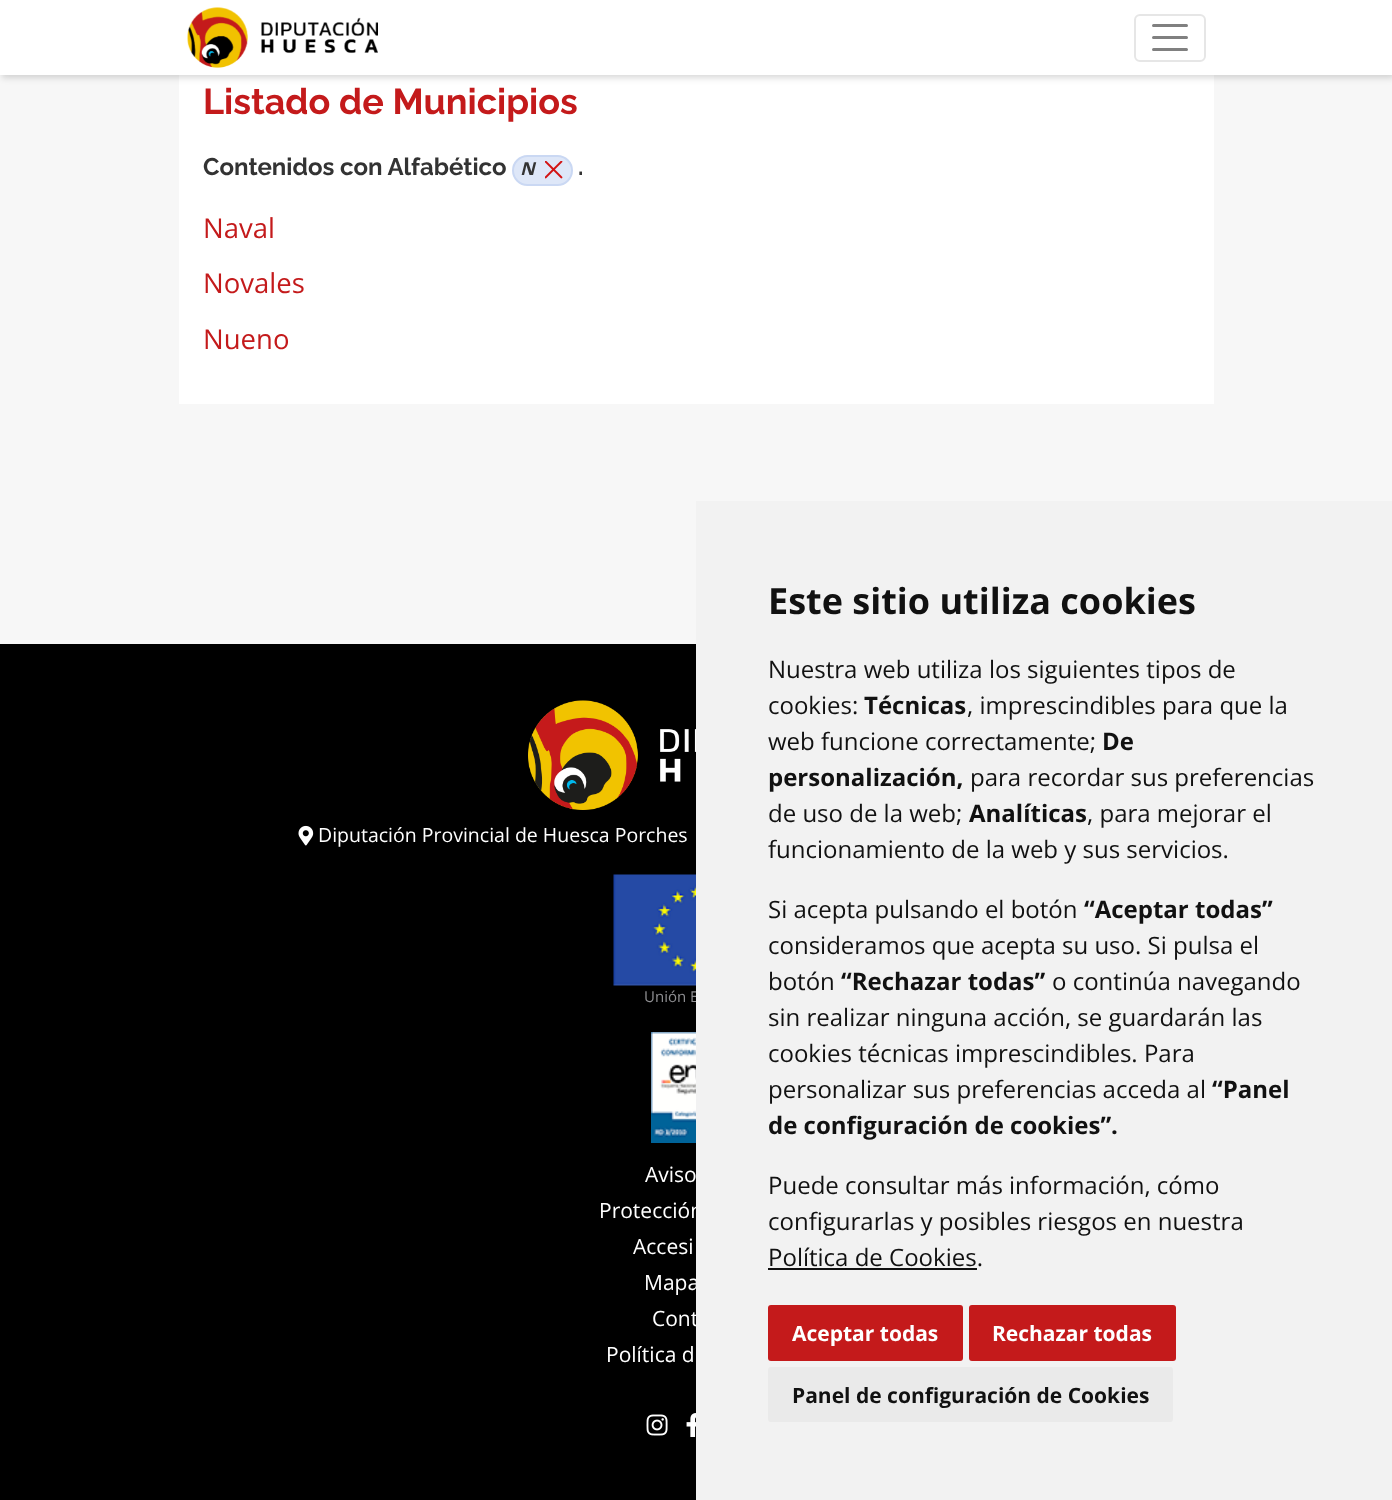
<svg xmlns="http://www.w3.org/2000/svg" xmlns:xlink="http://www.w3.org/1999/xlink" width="1392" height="1500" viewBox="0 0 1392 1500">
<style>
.cls-1{font:bold 36px Raleway;fill:#c41a1b}
.cls-2{font:bold 24px Raleway;fill:#333333}
.cls-3{font:italic bold 18px Open Sans;fill:#333333}
.cls-4{font:27.5px Open Sans;fill:#c41a1b}
.cls-5{font:19.5px Open Sans;fill:#ffffff}
.cls-6{font:15px Open Sans;fill:#8f8f92}
.cls-7{font:21px Open Sans;fill:#ffffff}
.cls-8{font:bold 36px Open Sans;fill:#111111}
.cls-9{font:24px Open Sans;fill:#111111}
.cls-10{font:bold 24px Open Sans;fill:#111111}
.cls-11{font:bold 21px Open Sans;fill:#ffffff}
.cls-12{font:bold 21px Open Sans;fill:#111111}
</style>
<rect width="100%" height="100%" fill="#000000"/>
<rect fill="#f7f7f7" x="0" y="75" width="1392" height="569"/>
<rect fill="#ffffff" x="179" y="75" width="1035" height="329"/>
<rect fill="#000000" fill-opacity="0.15" filter="blur(3px)" x="2" y="3" width="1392" height="75"/>
<rect fill="#ffffff" x="0" y="0" width="1392" height="75"/>
<image xlink:href="image0.png" x="187" y="7" width="191" height="61"/>
<rect fill="none" stroke="#e6e6e6" stroke-width="2" x="1135" y="15" width="70" height="46" rx="5"/>
<path fill="none" stroke="#808080" stroke-width="3" stroke-linecap="round" d="M1153.5 25.5H1186.5M1153.5 37.5H1186.5M1153.5 49.5H1186.5"/>
<rect fill="#dee7f8" stroke="#cad8f3" stroke-width="2" x="513" y="156" width="59" height="29" rx="14.5"/>
<image xlink:href="image1.png" x="545" y="161" width="18" height="18"/>
<image xlink:href="image2.png" x="528" y="700" width="168" height="110"/>
<image xlink:href="image3.png" x="298" y="825" width="16" height="21"/>
<image xlink:href="image4.png" x="613" y="874" width="83" height="112"/>
<image xlink:href="image5.png" x="651" y="1032" width="45" height="111"/>
<image xlink:href="image6.png" x="646" y="1414" width="22" height="22"/>
<image xlink:href="image7.png" x="686" y="1413" width="10" height="24"/>
<text class="cls-1" x="203" y="114">Listado de Municipios</text>
<text class="cls-2" x="203" y="175">Contenidos con Alfabético</text>
<text class="cls-3" x="520" y="175">N</text>
<text class="cls-2" x="578" y="175">.</text>
<text class="cls-4" x="203" y="238">Naval</text>
<text class="cls-4" x="203" y="293">Novales</text>
<text class="cls-4" x="203" y="349">Nueno</text>
<text class="cls-5" x="318" y="842">Diputación Provincial de Huesca Porches</text>
<text class="cls-6" x="644" y="1002">Unión E</text>
<text class="cls-7" x="645" y="1182">Aviso</text>
<text class="cls-7" x="599" y="1218">Protección</text>
<text class="cls-7" x="633" y="1254">Accesi</text>
<text class="cls-7" x="644" y="1290">Mapa</text>
<text class="cls-7" x="652" y="1326">Cont</text>
<text class="cls-7" x="606" y="1362">Política d</text>
<rect fill="#f2f2f2" x="696" y="501" width="696" height="999"/>
<text class="cls-8" x="768" y="614">Este sitio utiliza cookies</text>
<text class="cls-9"><tspan x="768" y="678">Nuestra web utiliza los siguientes tipos de</tspan><tspan x="768" y="714">cookies:</tspan></text>
<text class="cls-10" x="864" y="714">Técnicas</text>
<text class="cls-9" x="967" y="714">, imprescindibles para que la</text>
<text class="cls-9" x="768" y="750">web funcione correctamente;</text>
<text class="cls-10" x="1102" y="750">De</text>
<text class="cls-10" x="768" y="786">personalización,</text>
<text class="cls-9" x="970" y="786">para recordar sus preferencias</text>
<text class="cls-9" x="768" y="822">de uso de la web;</text>
<text class="cls-10" x="969" y="822">Analíticas</text>
<text class="cls-9" x="1087" y="822">, para mejorar el</text>
<text class="cls-9" x="768" y="858">funcionamiento de la web y sus servicios.</text>
<text class="cls-9" x="768" y="918">Si acepta pulsando el botón</text>
<text class="cls-10" x="1084" y="918">“Aceptar todas”</text>
<text class="cls-9"><tspan x="768" y="954">consideramos que acepta su uso. Si pulsa el</tspan><tspan x="768" y="990">botón</tspan></text>
<text class="cls-10" x="841" y="990">“Rechazar todas”</text>
<text class="cls-9" x="1052" y="990">o continúa navegando</text>
<text class="cls-9"><tspan x="768" y="1026">sin realizar ninguna acción, se guardarán las</tspan><tspan x="768" y="1062">cookies técnicas imprescindibles. Para</tspan><tspan x="768" y="1098">personalizar sus preferencias acceda al</tspan></text>
<text class="cls-10" x="1212" y="1098">“Panel</text>
<text class="cls-10" x="768" y="1134">de configuración de cookies”.</text>
<text class="cls-9"><tspan x="768" y="1194">Puede consultar más información, cómo</tspan><tspan x="768" y="1230">configurarlas y posibles riesgos en nuestra</tspan><tspan x="768" y="1266">Política de Cookies.</tspan></text>
<rect fill="#111111" x="768" y="1268" width="209" height="2"/>
<rect fill="#c41a1b" x="768" y="1305" width="195" height="56" rx="3"/>
<text class="cls-11" x="792" y="1341">Aceptar todas</text>
<rect fill="#c41a1b" x="969" y="1305" width="207" height="56" rx="3"/>
<text class="cls-11" x="992" y="1341">Rechazar todas</text>
<rect fill="#eaeaea" x="768" y="1367" width="405" height="55" rx="3"/>
<text class="cls-12" x="792" y="1403">Panel de configuración de Cookies</text>
</svg>
